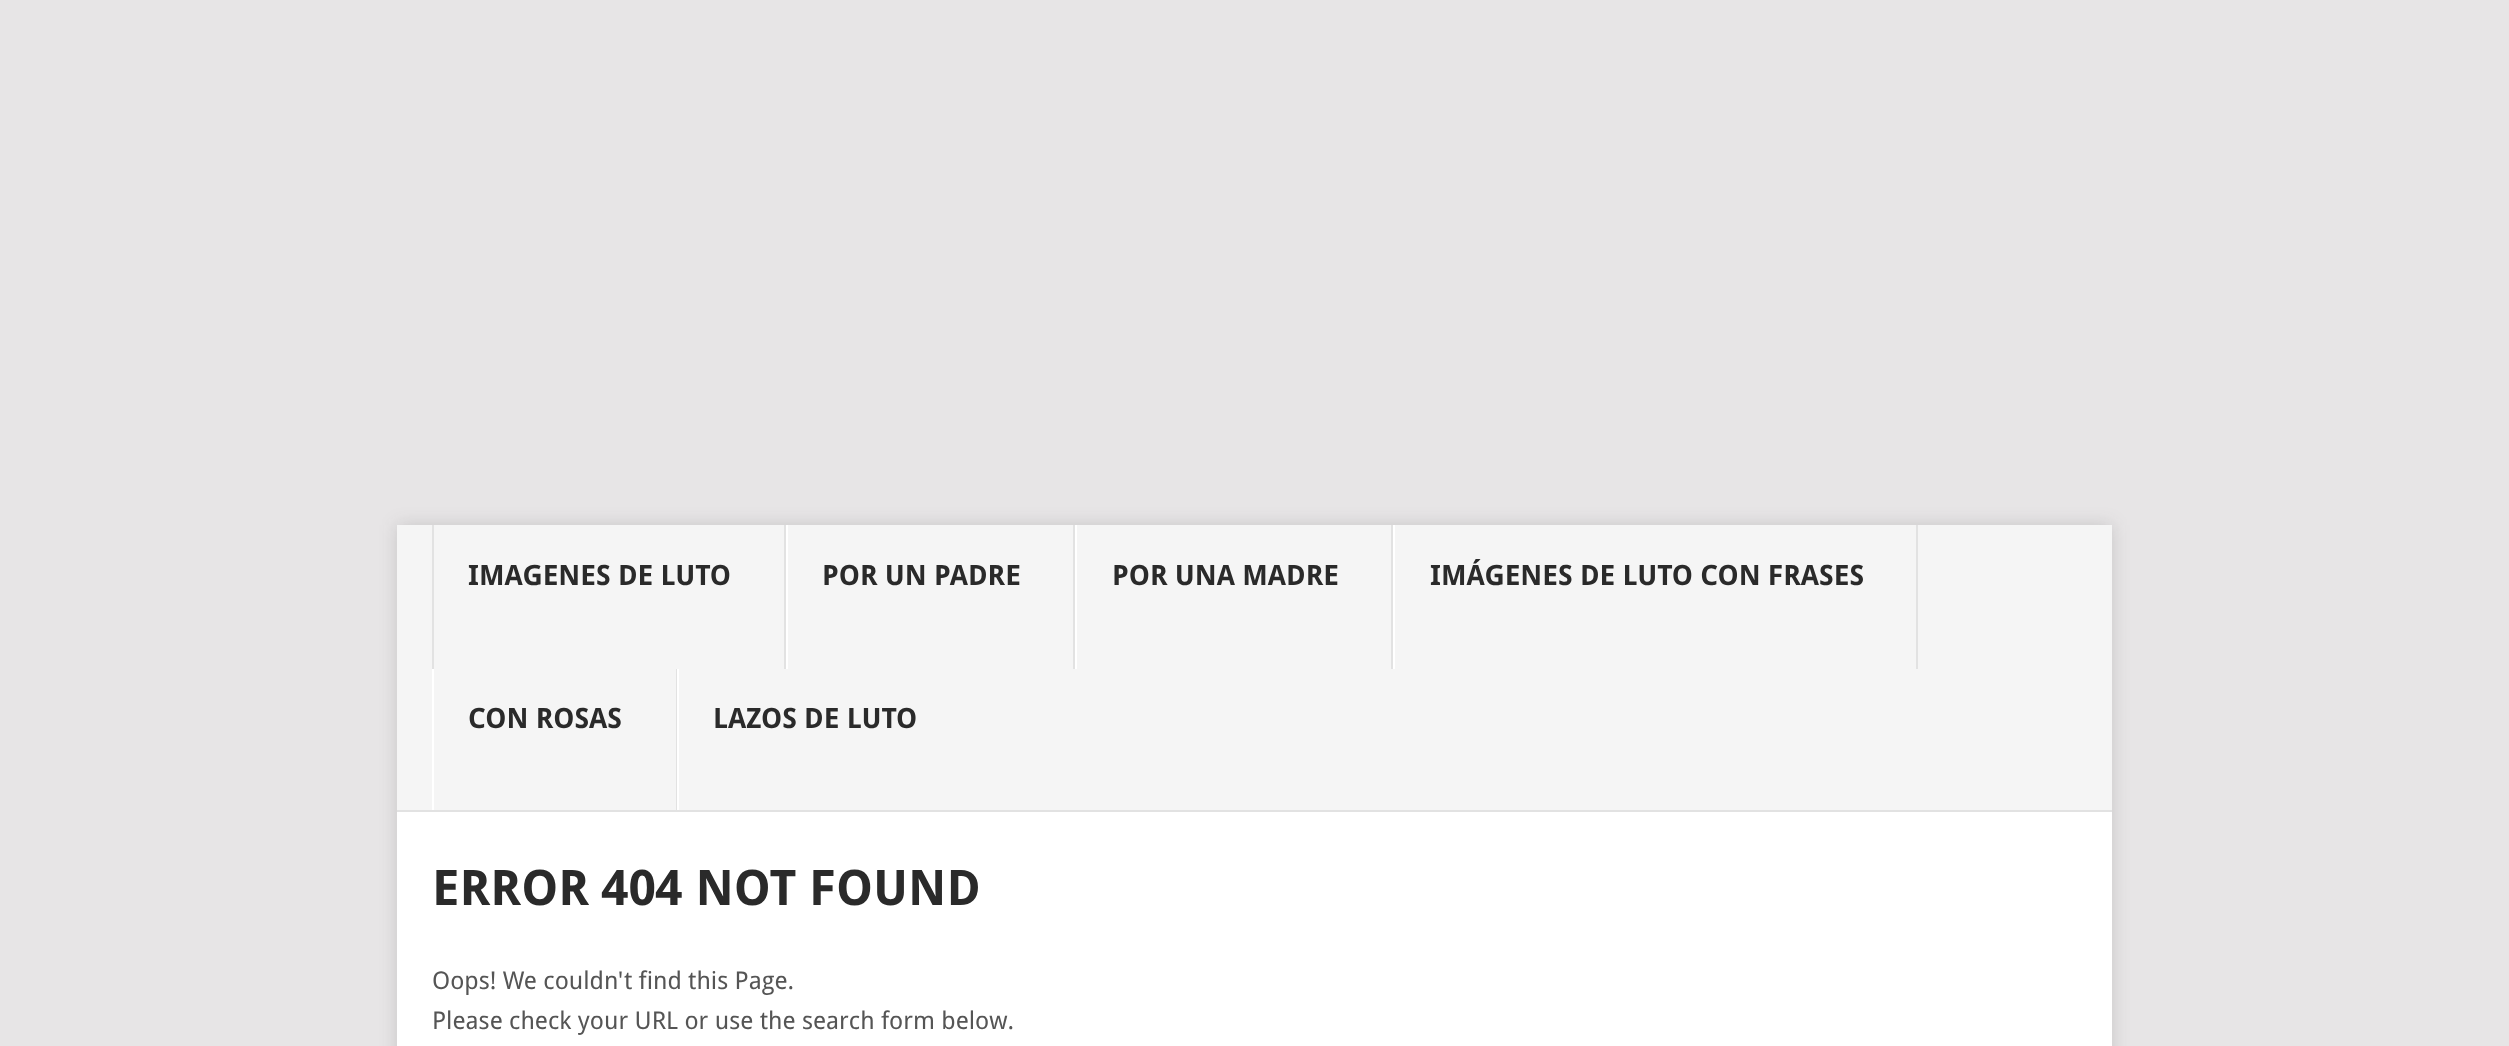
<svg xmlns="http://www.w3.org/2000/svg" xmlns:xlink="http://www.w3.org/1999/xlink" width="2509" height="1046" viewBox="0 0 2509 1046">
<style>
.cls-1{font:bold 28px Droid Sans;fill:#2a2a2a}
.cls-2{font:bold 49px Droid Sans;fill:#2a2a2a}
.cls-3{font:24.5px Droid Sans;fill:#555555}
</style>
<rect width="100%" height="100%" fill="#e7e5e6"/>
<rect fill="#323232" fill-opacity="0.17" filter="blur(9px)" x="397" y="525" width="1715" height="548"/>
<rect fill="#ffffff" x="397" y="812" width="1715" height="234"/>
<rect fill="#f5f5f5" x="397" y="525" width="1715" height="285"/>
<rect fill="#e2e2e2" x="784" y="525" width="2" height="144"/>
<rect fill="#e2e2e2" x="432" y="525" width="2" height="144"/>
<rect fill="#e2e2e2" x="1073" y="525" width="2" height="144"/>
<rect fill="#ffffff" x="786" y="525" width="2" height="144"/>
<rect fill="#e2e2e2" x="1391" y="525" width="2" height="144"/>
<rect fill="#ffffff" x="1075" y="525" width="2" height="144"/>
<rect fill="#e2e2e2" x="1916" y="525" width="2" height="144"/>
<rect fill="#ffffff" x="1393" y="525" width="2" height="144"/>
<rect fill="#e2e2e2" x="676" y="669" width="1" height="143"/>
<rect fill="#ffffff" x="432" y="669" width="2" height="143"/>
<rect fill="#ffffff" x="677" y="669" width="2" height="143"/>
<rect fill="#e2e2e2" x="397" y="810" width="1715" height="2"/>
<text class="cls-1" x="468" y="585">IMAGENES DE LUTO</text>
<text class="cls-1" x="822" y="585">POR UN PADRE</text>
<text class="cls-1" x="1112" y="585">POR UNA MADRE</text>
<text class="cls-1" x="1430" y="585">IMÁGENES DE LUTO CON FRASES</text>
<text class="cls-1" x="468" y="728">CON ROSAS</text>
<text class="cls-1" x="713" y="728">LAZOS DE LUTO</text>
<text class="cls-2" x="432" y="905">ERROR 404 NOT FOUND</text>
<text class="cls-3"><tspan x="432" y="989">Oops! We couldn't find this Page.</tspan><tspan x="432" y="1029">Please check your URL or use the search form below.</tspan></text>
</svg>
